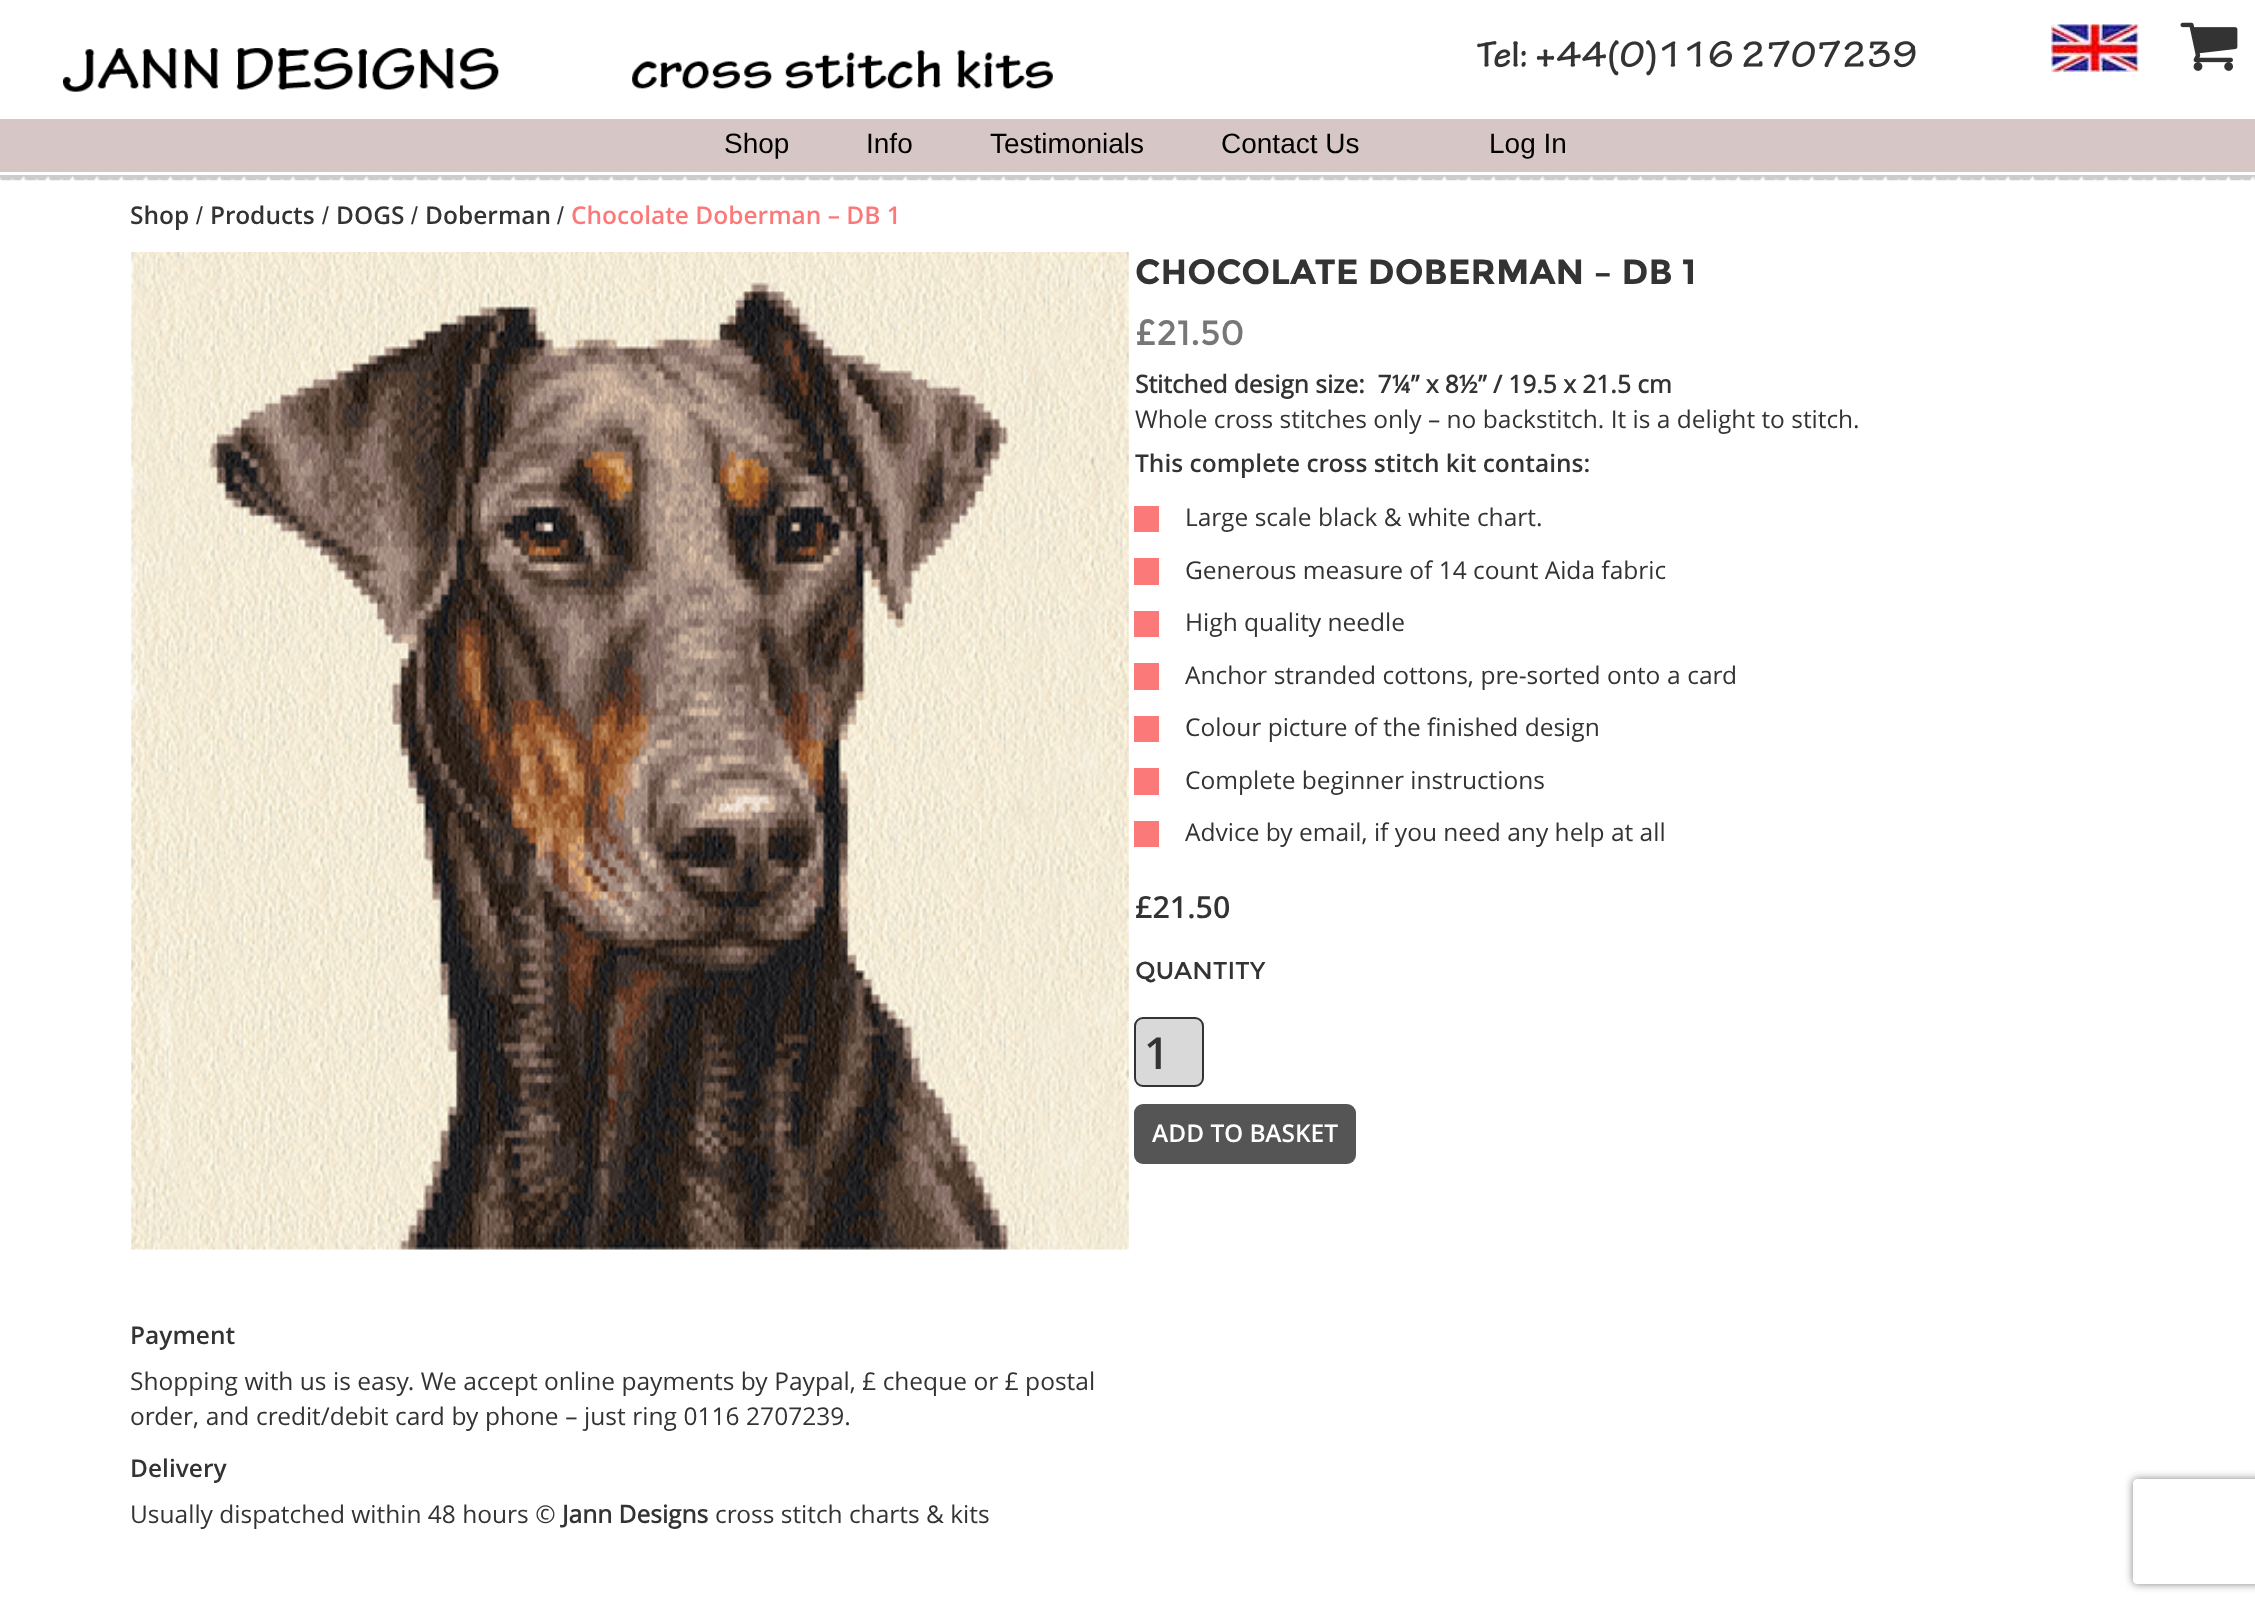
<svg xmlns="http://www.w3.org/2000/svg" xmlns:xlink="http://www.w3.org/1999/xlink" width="2255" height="1607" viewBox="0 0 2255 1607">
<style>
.cls-1{font:28px Liberation Sans;fill:#000000}
.cls-2{font:600 24.5px Open Sans;fill:#333333}
.cls-3{font:24.5px Liberation Sans;fill:#333333}
.cls-4{font:600 24.5px Open Sans;fill:#fc797a}
.cls-5{font:bold 35px Montserrat;fill:#333333}
.cls-6{font:35px Montserrat;fill:#777777}
.cls-7{font:bold 24.5px Open Sans;fill:#333333}
.cls-8{font:24.5px Open Sans;fill:#333333}
.cls-9{font:600 30.5px Open Sans;fill:#333333}
.cls-10{font:24.5px Montserrat;fill:#333333}
.cls-11{font:600 44px Open Sans;fill:#333333}
.cls-12{font:600 24.5px Open Sans;fill:#ffffff}
</style>
<defs>
<clipPath id="clip1"><path d="M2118 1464H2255V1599H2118ZM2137 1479H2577C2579 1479 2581 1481 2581 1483V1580C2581 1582 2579 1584 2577 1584H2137C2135 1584 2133 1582 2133 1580V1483C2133 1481 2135 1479 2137 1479Z" clip-rule="evenodd"/></clipPath>
</defs>
<rect width="100%" height="100%" fill="#ffffff"/>
<image xlink:href="image0.png" x="63" y="48" width="436" height="44"/>
<image xlink:href="image1.png" x="632" y="50" width="421" height="39"/>
<image xlink:href="image2.png" x="1477" y="40" width="439" height="36"/>
<image xlink:href="image3.png" x="2051" y="24" width="88" height="48"/>
<image xlink:href="image4.png" x="2180" y="22" width="58" height="49"/>
<rect fill="#d6c6c6" x="0" y="119" width="2255" height="53"/>
<image xlink:href="image5.png" x="0" y="175" width="2255" height="6"/>
<image xlink:href="image6.png" x="131" y="252" width="998" height="998"/>
<rect fill="#fc797a" x="1134" y="506" width="25" height="26"/>
<rect fill="#fc797a" x="1134" y="558" width="25" height="27"/>
<rect fill="#fc797a" x="1134" y="611" width="25" height="26"/>
<rect fill="#fc797a" x="1134" y="663" width="25" height="27"/>
<rect fill="#fc797a" x="1134" y="716" width="25" height="26"/>
<rect fill="#fc797a" x="1134" y="768" width="25" height="27"/>
<rect fill="#fc797a" x="1134" y="821" width="25" height="26"/>
<rect fill="#d9d9d9" stroke="#333333" stroke-width="2" x="1135" y="1018" width="68" height="68" rx="8"/>
<rect fill="#555555" x="1134" y="1104" width="222" height="60" rx="9"/>
<g clip-path="url(#clip1)">
<rect fill="#808080" filter="blur(4.5px)" x="2133" y="1479" width="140" height="105" rx="4"/>
</g>
<text class="cls-1" x="724" y="153">Shop</text>
<text class="cls-1" x="866" y="153">Info</text>
<text class="cls-1" x="990" y="153">Testimonials</text>
<text class="cls-1" x="1221" y="153">Contact Us</text>
<text class="cls-1" x="1489" y="153">Log In</text>
<text class="cls-2" x="130" y="224">Shop</text>
<text class="cls-3" x="196" y="224">/</text>
<text class="cls-2" x="210" y="224">Products</text>
<text class="cls-3" x="322" y="224">/</text>
<text class="cls-2" x="336" y="224">DOGS</text>
<text class="cls-3" x="411" y="224">/</text>
<text class="cls-2" x="425" y="224">Doberman</text>
<text class="cls-3" x="557" y="224">/</text>
<text class="cls-4" x="571" y="224">Chocolate Doberman – DB 1</text>
<text class="cls-5" x="1135" y="284">CHOCOLATE DOBERMAN – DB 1</text>
<text class="cls-6" x="1135" y="345">£21.50</text>
<text class="cls-7" xml:space="preserve" x="1135" y="393">Stitched design size:  7¼” x 8½” / 19.5 x 21.5 cm</text>
<text class="cls-8" x="1135" y="428">Whole cross stitches only – no backstitch. It is a delight to stitch.</text>
<text class="cls-2" x="1135" y="472">This complete cross stitch kit contains:</text>
<text class="cls-8" x="1185" y="526">Large scale black &amp; white chart.</text>
<text class="cls-8" x="1185" y="579">Generous measure of 14 count Aida fabric</text>
<text class="cls-8" x="1185" y="631">High quality needle</text>
<text class="cls-8" x="1185" y="684" word-spacing="0.25">Anchor stranded cottons, pre-sorted onto a card</text>
<text class="cls-8" x="1185" y="736">Colour picture of the finished design</text>
<text class="cls-8" x="1185" y="789">Complete beginner instructions</text>
<text class="cls-8" x="1185" y="841">Advice by email, if you need any help at all</text>
<text class="cls-9" x="1135" y="918">£21.50</text>
<text class="cls-10" x="1135" y="979">QUANTITY</text>
<text class="cls-11" x="1144" y="1069">1</text>
<text class="cls-12" x="1152" y="1142">ADD TO BASKET</text>
<text class="cls-2" x="130" y="1344">Payment</text>
<text class="cls-8"><tspan x="130" y="1390" word-spacing="0.1">Shopping with us is easy. We accept online payments by Paypal, £ cheque or £ postal</tspan><tspan x="130" y="1425" word-spacing="0.25">order, and credit/debit card by phone – just ring 0116 2707239.</tspan></text>
<text class="cls-2" x="130" y="1477">Delivery</text>
<text class="cls-8" x="130" y="1523">Usually dispatched within 48 hours ©</text>
<text class="cls-7" x="562" y="1523">Jann Designs</text>
<text class="cls-8" x="715" y="1523">cross stitch charts &amp; kits</text>
</svg>
